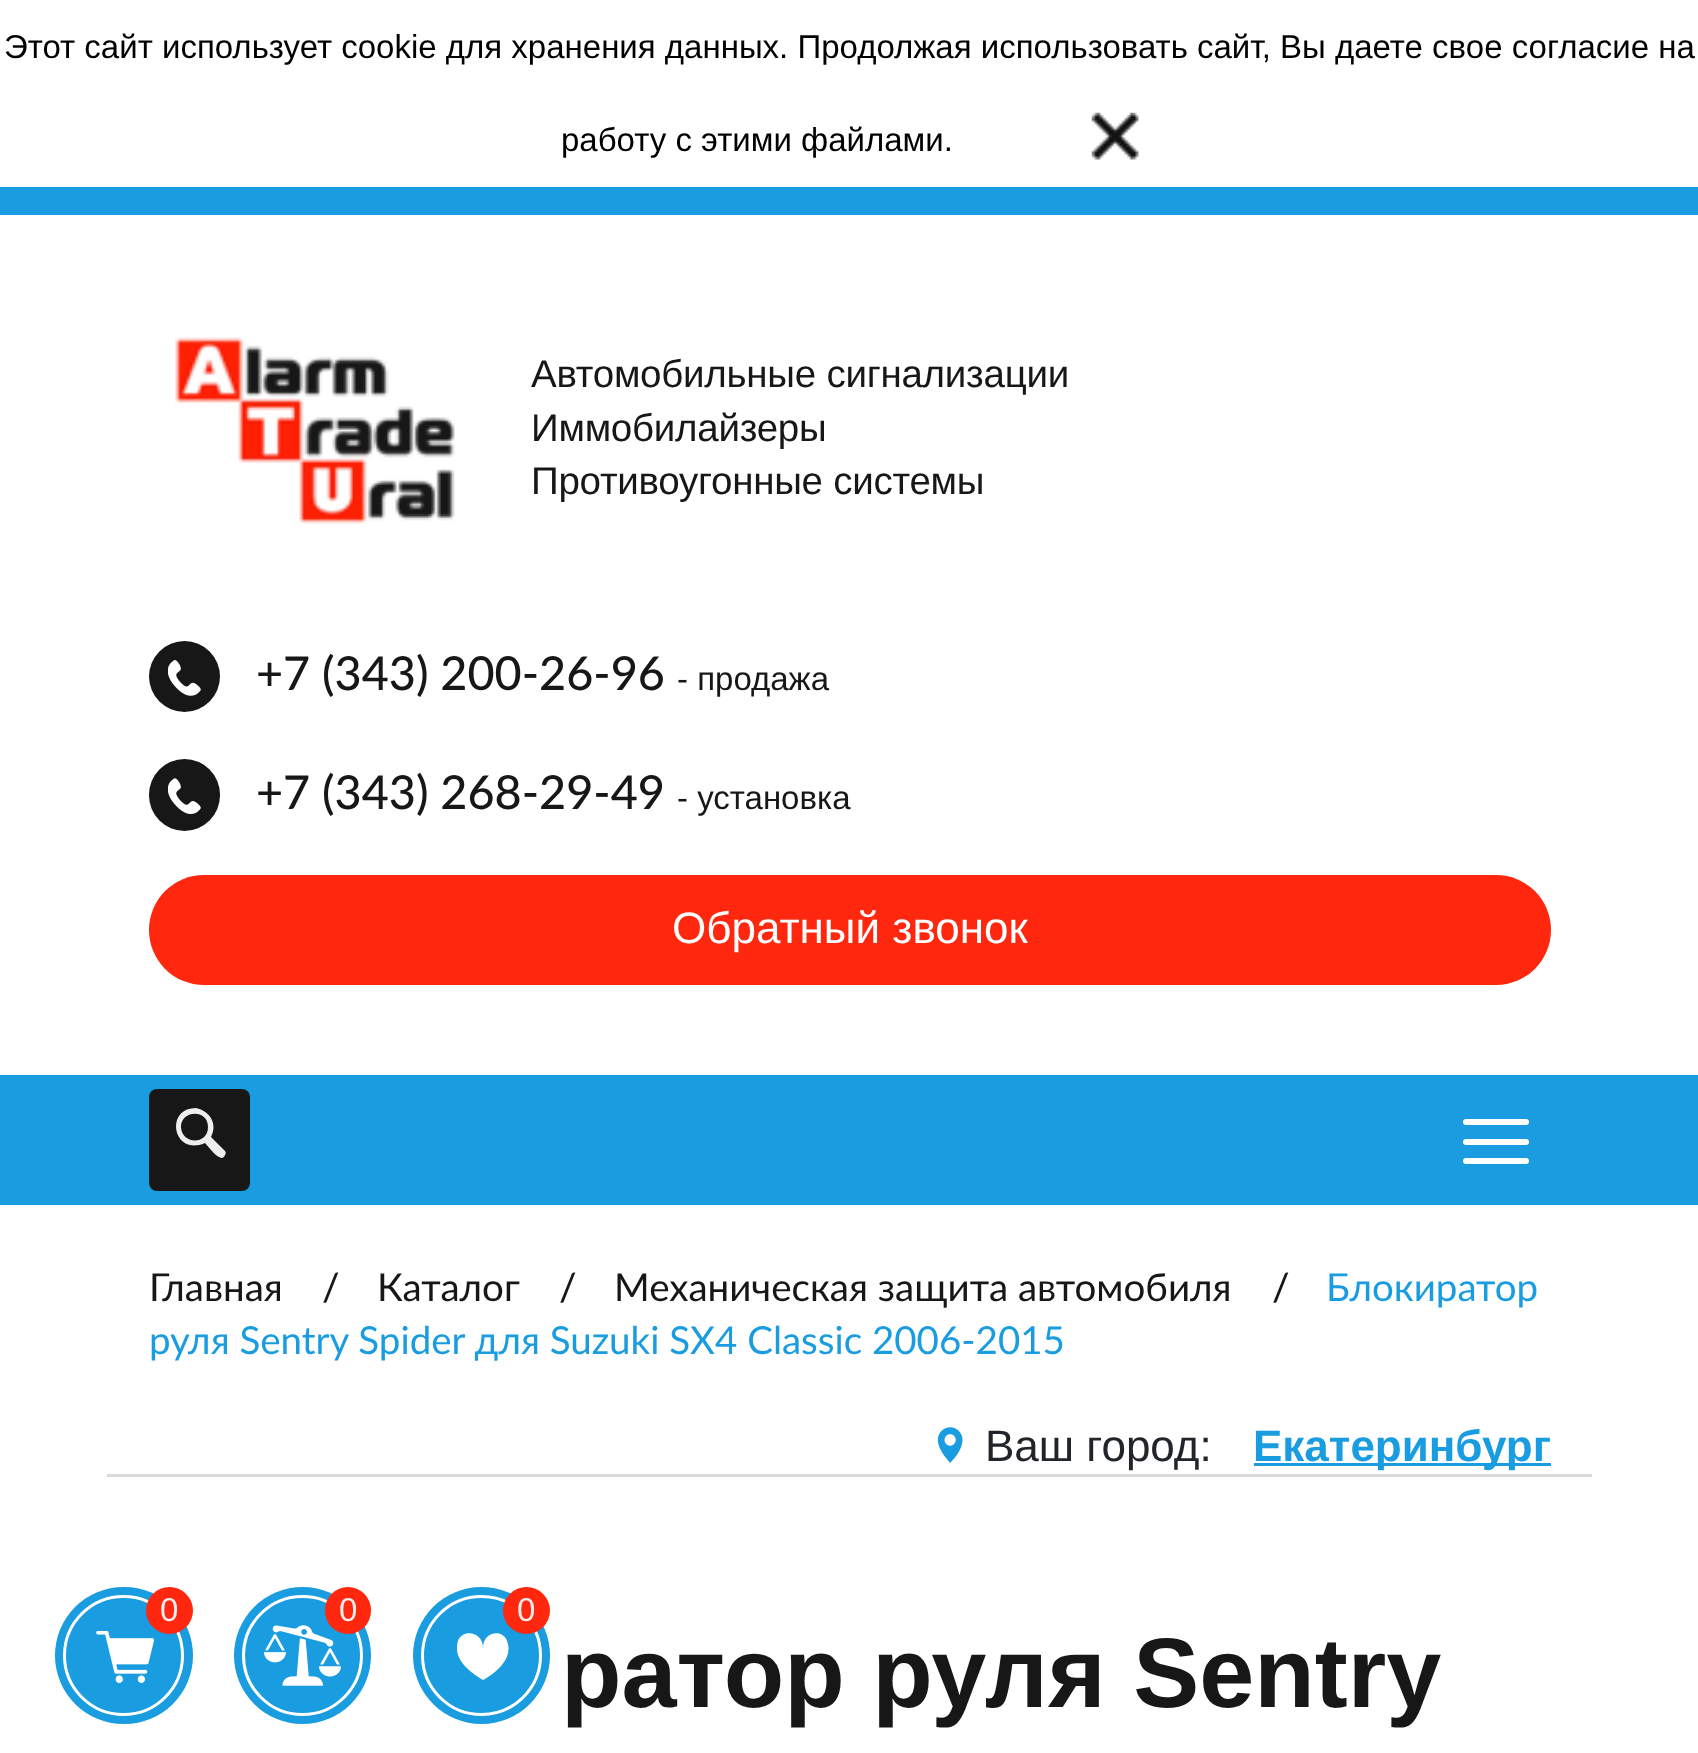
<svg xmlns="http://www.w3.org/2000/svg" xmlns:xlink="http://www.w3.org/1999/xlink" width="1698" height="1753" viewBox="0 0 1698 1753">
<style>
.cls-1{font:33px Liberation Sans;fill:#000000}
.cls-2{font:38.5px Liberation Sans;letter-spacing:-0.25px;fill:#171717}
.cls-3{font:500 46.75px Lato;fill:#171717}
.cls-4{font:33px Liberation Sans;fill:#171717}
.cls-5{font:44px Liberation Sans;fill:#ffffff}
.cls-6{font:38.5px Lato;fill:#171717}
.cls-7{font:500 38.5px Lato;fill:#171717}
.cls-8{font:38.5px Lato;fill:#199ce0}
.cls-9{font:44px Liberation Sans;fill:#212529}
.cls-10{font:bold 44px Liberation Sans;fill:#199ce0}
.cls-11{font:bold 99px Liberation Sans;fill:#171717}
.cls-12{font:33px Liberation Sans;fill:#eeeeee}
</style>
<defs>
<clipPath id="clip1"><rect x="457" y="1631" width="52" height="49"/></clipPath>
</defs>
<rect width="100%" height="100%" fill="#ffffff"/>
<image xlink:href="image0.png" x="1091" y="112" width="48" height="48"/>
<rect fill="#199ce0" x="0" y="187" width="1698" height="28"/>
<image xlink:href="image1.png" x="175" y="337" width="280" height="187"/>
<circle fill="#171717" cx="184.5" cy="676.5" r="35.5"/>
<image xlink:href="image2.png" x="168" y="660" width="33" height="36"/>
<rect fill="#171717" x="149" y="759" width="71" height="72" rx="35.5"/>
<image xlink:href="image3.png" x="168" y="778" width="33" height="36"/>
<rect fill="#ff270d" x="149" y="875" width="1402" height="110" rx="55"/>
<rect fill="#199ce0" x="0" y="1075" width="1698" height="130"/>
<rect fill="#171717" x="149" y="1089" width="101" height="102" rx="8"/>
<path fill="#eeeeee" fill-rule="evenodd" d="M196 1108C210 1111 218 1124 211 1137L225 1151C226 1152 226 1154 225 1155C222 1163 213 1152 211 1150L205 1143C173 1157 164 1108 196 1108ZM181 1127C182 1145 208 1145 208 1127C208 1109 181 1110 181 1127Z"/>
<rect fill="#ffffff" x="1463" y="1139" width="66" height="6" rx="3"/>
<rect fill="#ffffff" x="1463" y="1119" width="66" height="6" rx="3"/>
<rect fill="#ffffff" x="1463" y="1158" width="66" height="6" rx="3"/>
<rect fill="#dadada" x="107" y="1474" width="1485" height="3"/>
<image xlink:href="image4.png" x="938" y="1427" width="25" height="36"/>
<rect fill="#199ce0" x="1254" y="1463" width="297" height="3"/>
<rect fill="#199ce0" x="55" y="1587" width="138" height="137" rx="68.5"/>
<image xlink:href="image5.png" x="96" y="1631" width="58" height="52"/>
<circle fill="none" stroke="#ffffff" stroke-width="3" cx="123.5" cy="1655.5" r="59"/>
<circle fill="#ff270d" cx="169.5" cy="1610.5" r="23.5"/>
<circle fill="#199ce0" cx="302.5" cy="1655.5" r="68.5"/>
<image xlink:href="image6.png" x="264" y="1625" width="77" height="61"/>
<circle fill="none" stroke="#ffffff" stroke-width="3" cx="302.5" cy="1655.5" r="59"/>
<rect fill="#ff270d" x="325" y="1587" width="46" height="47" rx="23"/>
<circle fill="#199ce0" cx="481.5" cy="1655.5" r="68.5"/>
<g clip-path="url(#clip1)">
<path fill="#ffffff" fill-rule="evenodd" d="M507 1641C503 1629 483 1631 483 1648C483 1631 462 1629 458 1641C450 1663 483 1680 483 1680C483 1680 516 1663 507 1641Z"/>
</g>
<circle fill="none" stroke="#ffffff" stroke-width="3" cx="481.5" cy="1655.5" r="59"/>
<circle fill="#ff270d" cx="526.5" cy="1610.5" r="23.5"/>
<text class="cls-1" x="4" y="58">Этот сайт использует cookie для хранения данных. Продолжая использовать сайт, Вы даете свое согласие на</text>
<text class="cls-1" x="561" y="151">работу с этими файлами.</text>
<text class="cls-2"><tspan x="531" y="387">Автомобильные сигнализации</tspan><tspan x="531" y="441">Иммобилайзеры</tspan><tspan x="531" y="494">Противоугонные системы</tspan></text>
<text class="cls-3" x="256" y="690">+7 (343) 200-26-96</text>
<text class="cls-4" x="677" y="690">- продажа</text>
<text class="cls-3" x="256" y="809">+7 (343) 268-29-49</text>
<text class="cls-4" x="677" y="809">- установка</text>
<text class="cls-5" x="672" y="943">Обратный звонок</text>
<text class="cls-6" x="149" y="1301">Главная</text>
<text class="cls-7" x="322" y="1301">/</text>
<text class="cls-6" x="377" y="1301">Каталог</text>
<text class="cls-7" x="559" y="1301">/</text>
<text class="cls-6" x="614" y="1301">Механическая защита автомобиля</text>
<text class="cls-7" x="1272" y="1301">/</text>
<text class="cls-8" x="1326" y="1301">Блокиратор</text>
<text class="cls-8" x="149" y="1354">руля Sentry Spider для Suzuki SX4 Classic 2006-2015</text>
<text class="cls-9" x="985" y="1461">Ваш город:</text>
<text class="cls-10" x="1253" y="1461">Екатеринбург</text>
<text class="cls-11" x="561" y="1707">ратор руля Sentry</text>
<text class="cls-12" x="160" y="1621">0</text>
<text class="cls-12" x="339" y="1621">0</text>
<text class="cls-12" x="517" y="1621">0</text>
</svg>
